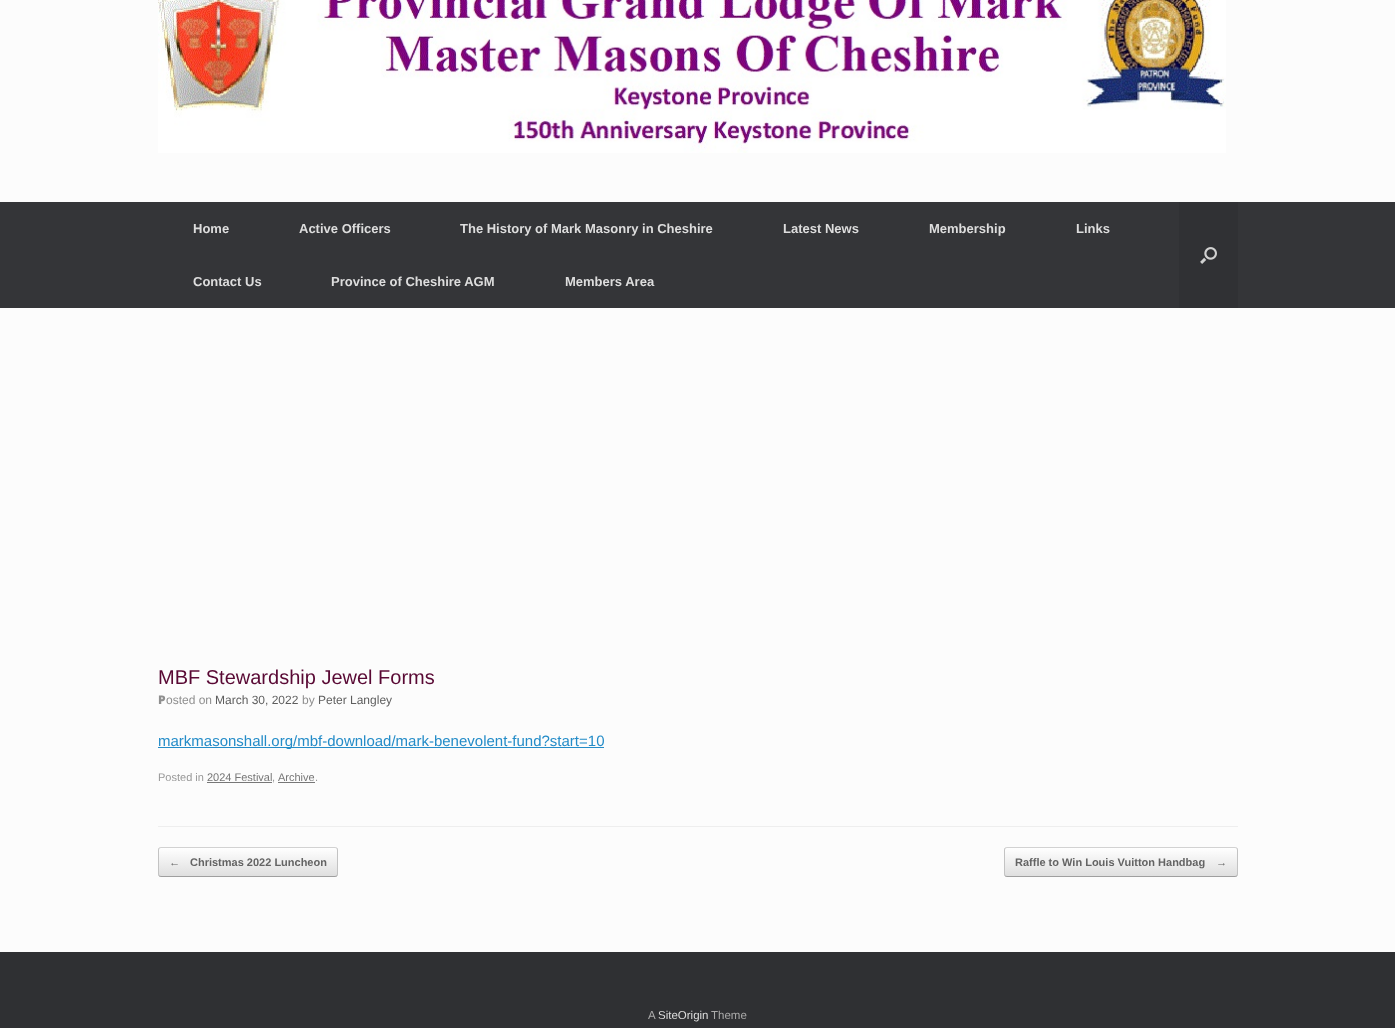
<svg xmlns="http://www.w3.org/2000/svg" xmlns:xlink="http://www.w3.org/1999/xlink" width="1395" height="1028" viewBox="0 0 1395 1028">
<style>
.cls-1{font:bold 13px Liberation Sans;fill:#dddddd}
.cls-2{font:20px Liberation Sans;fill:#590934}
.cls-3{font:900 12px Noto Sans;fill:#8f8f8f}
.cls-4{font:12px Liberation Sans;fill:#8f8f8f}
.cls-5{font:12px Liberation Sans;fill:#5e5e5e}
.cls-6{font:15px Liberation Sans;fill:#248cc8}
.cls-7{font:11px Liberation Sans;fill:#999999}
.cls-8{font:11px Liberation Sans;fill:#777777}
.cls-9{font:bold 11px Liberation Sans;fill:#646464}
.cls-10{font:11.5px Liberation Sans;fill:#aaaaaa}
.cls-11{font:11.5px Liberation Sans;fill:#dddddd}
</style>
<defs>
<clipPath id="clip1"><rect x="158" y="847" width="180" height="30" rx="3"/></clipPath>
<linearGradient id="g1" gradientUnits="userSpaceOnUse" x1="159" y1="876" x2="159" y2="848"><stop offset="0" stop-color="#dfdfdf"/><stop offset="1" stop-color="#ffffff"/></linearGradient>
<clipPath id="clip2"><rect x="1004" y="847" width="234" height="30" rx="3"/></clipPath>
<linearGradient id="g2" gradientUnits="userSpaceOnUse" x1="1005" y1="876" x2="1005" y2="848"><stop offset="0" stop-color="#dfdfdf"/><stop offset="1" stop-color="#ffffff"/></linearGradient>
</defs>
<rect width="100%" height="100%" fill="#2f3033"/>
<rect fill="#fcfcfc" x="0" y="0" width="1395" height="202"/>
<image xlink:href="image0.png" x="158" y="0" width="1068" height="153"/>
<rect fill="#343538" x="0" y="202" width="1395" height="106"/>
<rect fill="#303134" x="1179" y="202" width="59" height="106"/>
<image xlink:href="image1.png" x="1200" y="247" width="17" height="17"/>
<rect fill="#fcfcfc" x="0" y="308" width="1395" height="644"/>
<rect fill="#eeeeee" x="158" y="826" width="1080" height="1"/>
<rect fill="#248cc8" x="158" y="747" width="446" height="1"/>
<rect fill="#777777" x="207" y="782" width="65" height="1"/>
<rect fill="#777777" x="278" y="782" width="37" height="1"/>
<g clip-path="url(#clip1)">
<rect fill="url(#g1)" x="158" y="848" width="180" height="28"/>
</g>
<path fill="none" stroke="#d2d2d2" d="M159 848L161 847.5H335L337 848"/>
<path fill="none" stroke="#c3c3c3" d="M337 848C337 848.5 337.5 849.5 337.5 850V874C337.5 874.5 337 875.5 337 876"/>
<path fill="none" stroke="#9f9f9f" d="M337 876L335 876.5H161L159 876"/>
<path fill="none" stroke="#c3c3c3" d="M159 876C159 875.5 158.5 874.5 158.5 874V850C158.5 849.5 159 848.5 159 848"/>
<g clip-path="url(#clip2)">
<rect fill="url(#g2)" x="1004" y="848" width="234" height="28"/>
</g>
<path fill="none" stroke="#d2d2d2" d="M1005 848L1007 847.5H1235L1237 848"/>
<path fill="none" stroke="#c3c3c3" d="M1237 848C1237 848.5 1237.5 849.5 1237.5 850V874C1237.5 874.5 1237 875.5 1237 876"/>
<path fill="none" stroke="#9f9f9f" d="M1237 876L1235 876.5H1007L1005 876"/>
<path fill="none" stroke="#c3c3c3" d="M1005 876C1005 875.5 1004.5 874.5 1004.5 874V850C1004.5 849.5 1005 848.5 1005 848"/>
<text class="cls-1" x="193" y="233">Home</text>
<text class="cls-1" x="299" y="233">Active Officers</text>
<text class="cls-1" x="460" y="233">The History of Mark Masonry in Cheshire</text>
<text class="cls-1" x="783" y="233">Latest News</text>
<text class="cls-1" x="929" y="233">Membership</text>
<text class="cls-1" x="1076" y="233">Links</text>
<text class="cls-1" x="193" y="286">Contact Us</text>
<text class="cls-1" x="331" y="286">Province of Cheshire AGM</text>
<text class="cls-1" x="565" y="286">Members Area</text>
<text class="cls-2" x="158" y="684">MBF Stewardship Jewel Forms</text>
<text class="cls-3" x="158" y="704">P</text>
<text class="cls-4" x="166" y="704">osted on</text>
<text class="cls-5" x="215" y="704">March 30, 2022</text>
<text class="cls-4" x="302" y="704">by</text>
<text class="cls-5" x="318" y="704">Peter Langley</text>
<text class="cls-6" x="158" y="746">markmasonshall.org/mbf-download/mark-benevolent-fund?start=10</text>
<text class="cls-7" x="158" y="781">Posted in</text>
<text class="cls-8" x="207" y="781">2024 Festival</text>
<text class="cls-7" x="272" y="781">,</text>
<text class="cls-8" x="278" y="781">Archive</text>
<text class="cls-7" x="315" y="781">.</text>
<text class="cls-9" x="169" y="866">←</text>
<text class="cls-9" x="190" y="866">Christmas 2022 Luncheon</text>
<text class="cls-9" x="1015" y="866">Raffle to Win Louis Vuitton Handbag</text>
<text class="cls-9" x="1216" y="866">→</text>
<text class="cls-10" x="648" y="1019">A</text>
<text class="cls-11" x="658" y="1019">SiteOrigin</text>
<text class="cls-10" x="711" y="1019">Theme</text>
</svg>
